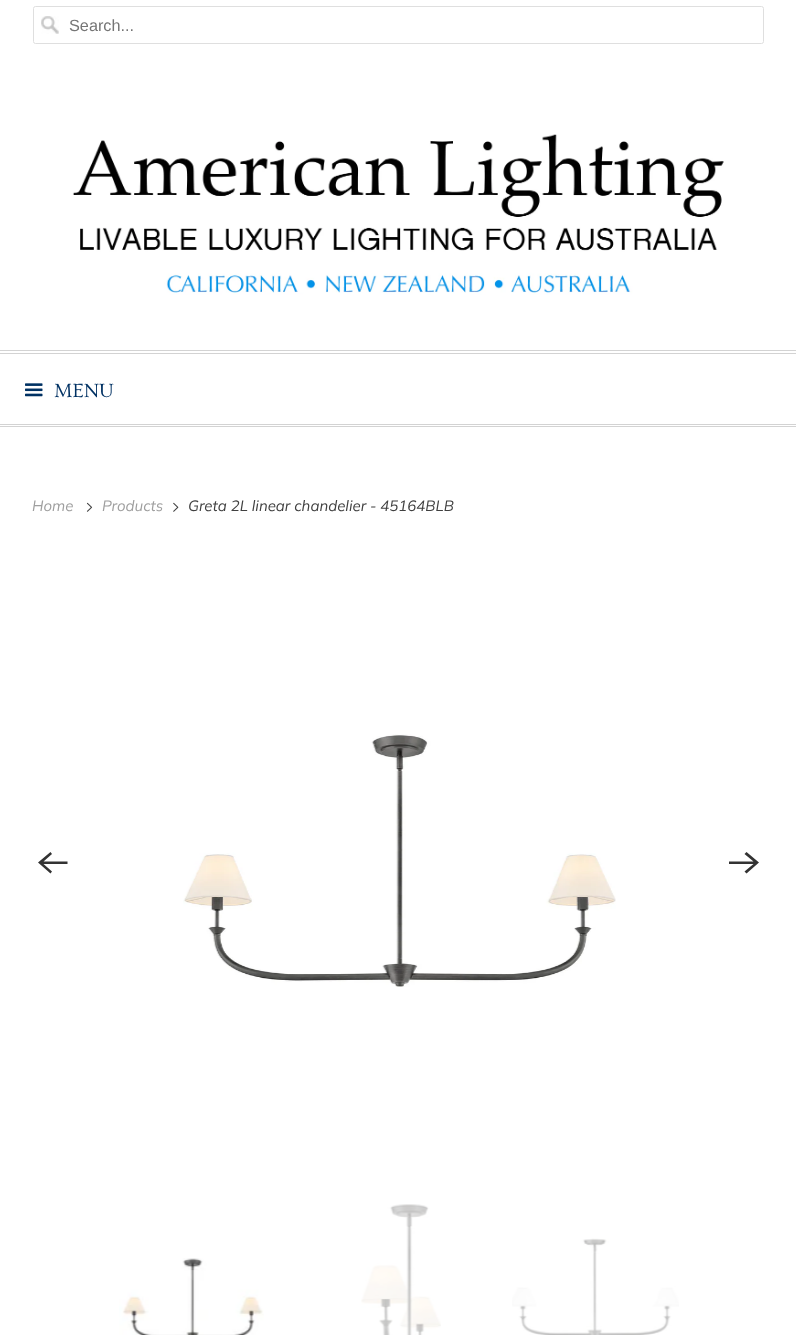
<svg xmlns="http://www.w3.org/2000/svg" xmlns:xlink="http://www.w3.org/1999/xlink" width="796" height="1335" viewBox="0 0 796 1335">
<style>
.cls-1{font:16.25px Liberation Sans;fill:#757575}
.cls-2{font:20px Ovo;fill:#003163}
.cls-3{font:italic 15px Muli;fill:#9f9f9f}
.cls-4{font:italic 15px Muli;fill:#404040}
</style>
<rect width="100%" height="100%" fill="#ffffff"/>
<image xlink:href="image0.png" x="41" y="16" width="18" height="18"/>
<rect fill="none" stroke="#dfdfdf" x="33.5" y="6.5" width="730" height="37" rx="2"/>
<image xlink:href="image1.png" x="72" y="134" width="652" height="161"/>
<rect fill="#d3d3d3" x="0" y="350" width="796" height="1"/>
<rect fill="#d3d3d3" x="0" y="353" width="796" height="1"/>
<rect fill="#d3d3d3" x="0" y="424" width="796" height="1"/>
<rect fill="#d3d3d3" x="0" y="426" width="796" height="1"/>
<image xlink:href="image2.png" x="25" y="383" width="18" height="14"/>
<image xlink:href="image3.png" x="86" y="502" width="7" height="10"/>
<image xlink:href="image4.png" x="173" y="502" width="6" height="10"/>
<path fill="#333333" d="M67.5 861.5H43.5L52 854L50.5 852L38 862.5L50.5 873.5L52 871.5L43.5 864H67.5Z"/>
<image xlink:href="image5.png" x="183" y="734" width="433" height="253"/>
<path fill="#333333" d="M729 864H753.5L744.5 871.5L746.5 873.5L759 862.5L746.5 852L744.5 854L753.5 861.5H729Z"/>
<image xlink:href="image6.png" x="119" y="1258" width="145" height="77"/>
<image xlink:href="image7.png" x="361" y="1204" width="80" height="131"/>
<image xlink:href="image8.png" x="512" y="1238" width="167" height="97"/>
<text class="cls-1" x="69" y="31">Search...</text>
<text class="cls-2" x="54" y="397">MENU</text>
<text class="cls-3" x="32" y="511">Home</text>
<text class="cls-3" x="102" y="511">Products</text>
<text class="cls-4" x="188" y="511">Greta 2L linear chandelier - 45164BLB</text>
</svg>
